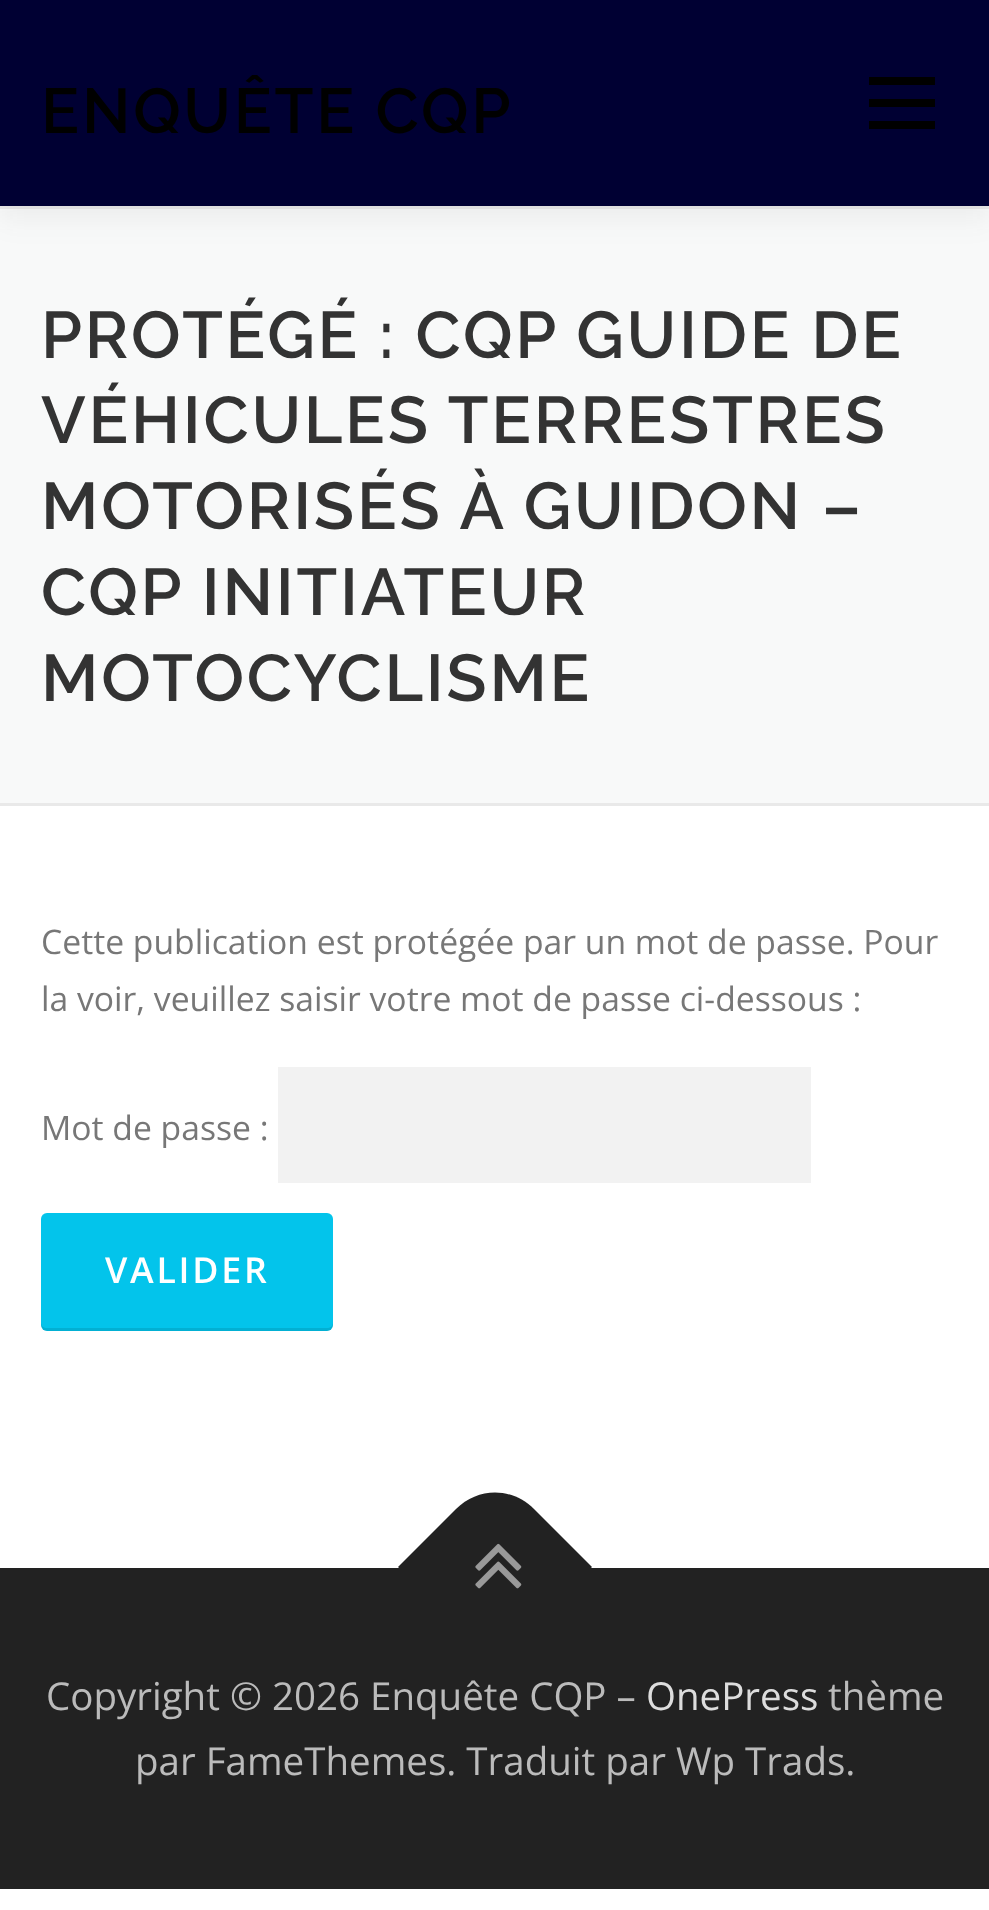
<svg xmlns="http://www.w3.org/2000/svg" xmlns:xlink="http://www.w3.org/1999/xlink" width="989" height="1910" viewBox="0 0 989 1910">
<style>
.cls-1{font:600 63.25px Raleway;letter-spacing:2.75px;fill:#000000}
.cls-2{font:600 66px Raleway;letter-spacing:2.75px;fill:#333333}
.cls-3{font:33.7px Open Sans;fill:#777777}
.cls-4{font:600 35.75px Open Sans;letter-spacing:2.75px;fill:#ffffff}
.cls-5{font:38.5px Open Sans;fill:#bbbbbb}
.cls-6{font:38.5px Open Sans;fill:#dddddd}
</style>
<rect width="100%" height="100%" fill="#ffffff"/>
<rect fill="#f8f9f9" x="0" y="209" width="989" height="594"/>
<rect fill="#e9e9e9" x="0" y="206" width="989" height="3"/>
<rect fill="#323232" fill-opacity="0.06" filter="blur(14px)" x="0" y="14" width="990" height="206"/>
<rect fill="#000033" x="0" y="0" width="989" height="206"/>
<rect fill="#000000" x="869" y="99" width="66" height="8"/>
<rect fill="#000000" x="869" y="77" width="66" height="8"/>
<rect fill="#000000" x="869" y="121" width="66" height="8"/>
<rect fill="#e9e9e9" x="0" y="803" width="989" height="3"/>
<rect fill="#f2f2f2" x="278" y="1067" width="533" height="116"/>
<rect fill="#03c4eb" x="41" y="1213" width="292" height="118" rx="6"/>
<path fill="#000000" fill-opacity="0.1" d="M41 1323V1325C41 1328 44 1331 47 1331H327C330 1331 333 1328 333 1325V1323C333 1326 330 1328 327 1328H47C44 1328 41 1326 41 1323Z"/>
<rect fill="#222222" x="0" y="1568" width="989" height="321"/>
<path fill="#222222" d="M398 1567L456 1509C478 1487 512 1487 534 1509L592 1567L495 1664Z"/>
<image xlink:href="image0.png" x="475" y="1543" width="47" height="46"/>
<text class="cls-1" x="41" y="133">ENQUÊTE CQP</text>
<text class="cls-2"><tspan x="41" y="358">PROTÉGÉ : CQP GUIDE DE</tspan><tspan x="41" y="443">VÉHICULES TERRESTRES</tspan><tspan x="41" y="529">MOTORISÉS À GUIDON –</tspan><tspan x="41" y="615">CQP INITIATEUR</tspan><tspan x="41" y="701">MOTOCYCLISME</tspan></text>
<text class="cls-3"><tspan x="41" y="954">Cette publication est protégée par un mot de passe. Pour</tspan><tspan x="41" y="1011">la voir, veuillez saisir votre mot de passe ci-dessous :</tspan></text>
<text class="cls-3" x="41" y="1140">Mot de passe :</text>
<text class="cls-4" x="105" y="1283">VALIDER</text>
<text class="cls-5" x="46" y="1710">Copyright © 2026 Enquête CQP –</text>
<text class="cls-6" x="646" y="1710">OnePress</text>
<text class="cls-5" x="828" y="1710">thème</text>
<text class="cls-5" x="135" y="1775">par FameThemes. Traduit par Wp Trads.</text>
</svg>
